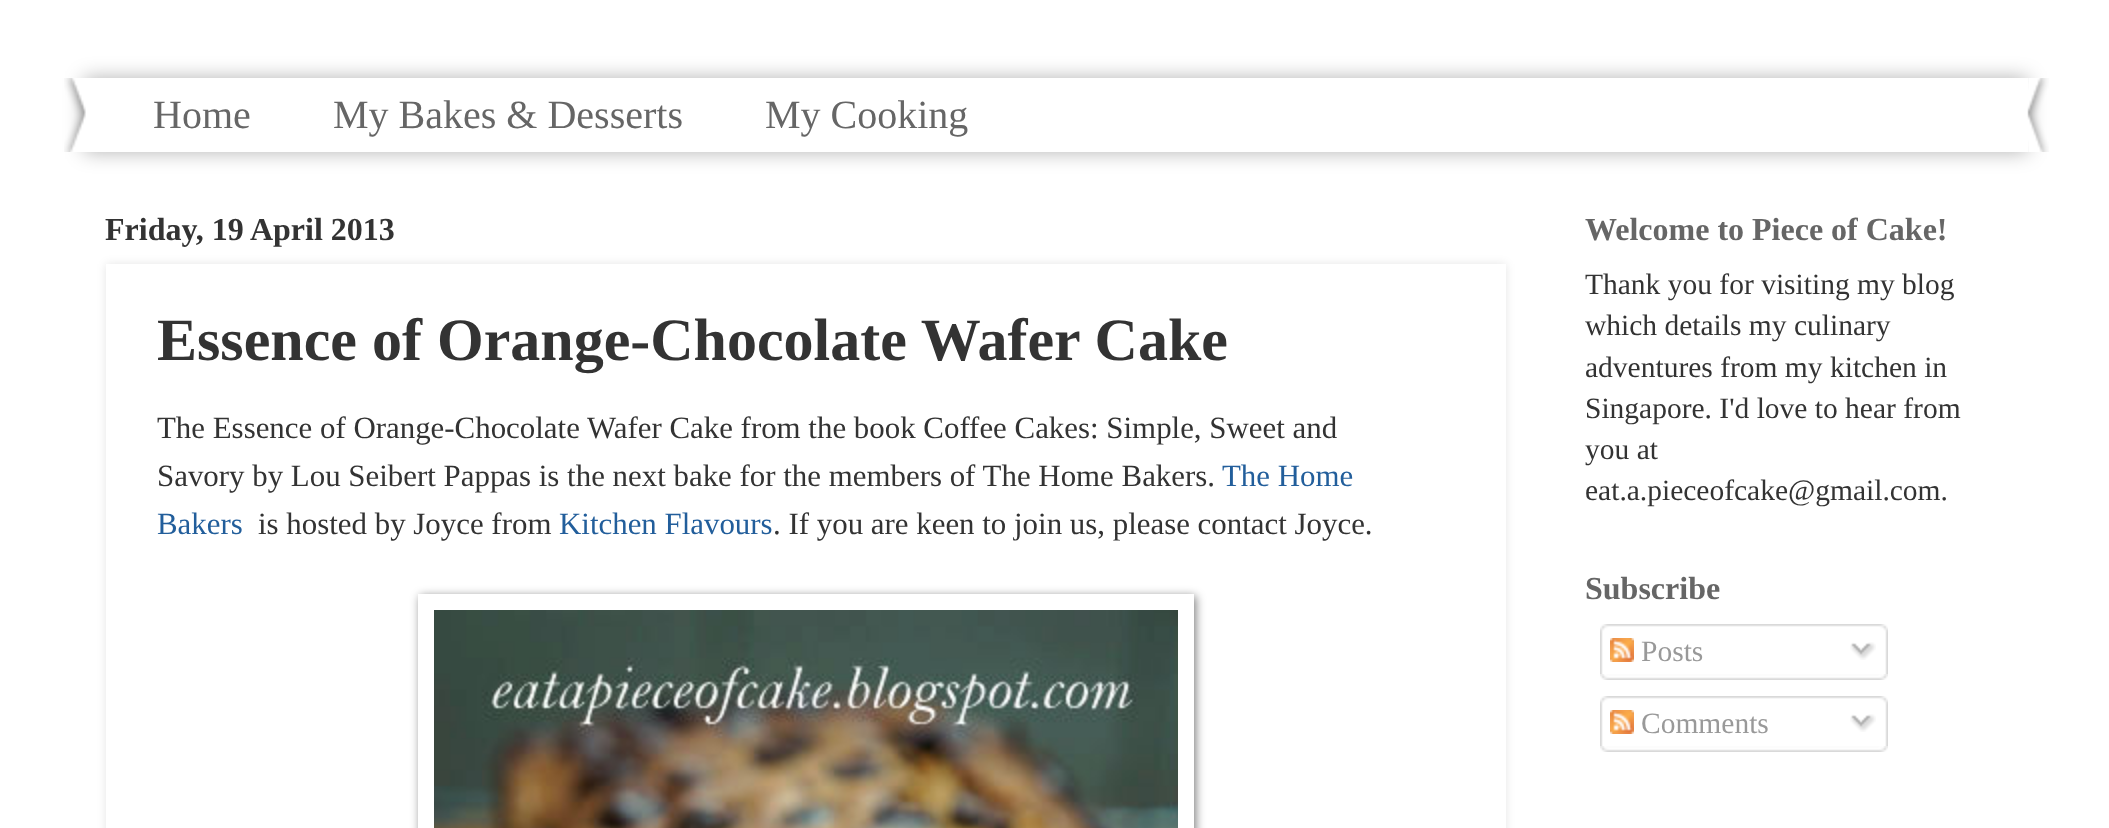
<svg xmlns="http://www.w3.org/2000/svg" xmlns:xlink="http://www.w3.org/1999/xlink" width="2109" height="828" viewBox="0 0 2109 828">
<style>
.cls-1{font:40px Liberation Serif;fill:#666666}
.cls-2{font:bold 32px Liberation Serif;fill:#333333}
.cls-3{font:bold 60px Liberation Serif;fill:#333333}
.cls-4{font:30.9px Liberation Serif;fill:#333333}
.cls-5{font:30.9px Liberation Serif;fill:#225e9b}
.cls-6{font:bold 32px Liberation Serif;fill:#666666}
.cls-7{font:29.5px Liberation Serif;fill:#333333}
.cls-8{font:29.5px Liberation Serif;fill:#999999}
</style>
<defs>
<clipPath id="clip1"><path d="M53 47H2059V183H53ZM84 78H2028V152H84Z" clip-rule="evenodd"/></clipPath>
<clipPath id="clip2"><path d="M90 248H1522V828H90ZM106 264H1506V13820H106Z" clip-rule="evenodd"/></clipPath>
<clipPath id="clip3"><path d="M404 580H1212V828H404ZM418 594H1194V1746H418Z" clip-rule="evenodd"/></clipPath>
</defs>
<rect width="100%" height="100%" fill="#ffffff"/>
<g clip-path="url(#clip1)">
<rect fill="#000000" fill-opacity="0.3" filter="blur(10px)" x="84" y="78" width="1944" height="74"/>
</g>
<image xlink:href="image0.png" x="2027" y="78" width="22" height="74"/>
<image xlink:href="image1.png" x="64" y="78" width="22" height="74"/>
<g clip-path="url(#clip2)">
<rect fill="#000000" fill-opacity="0.1" filter="blur(5px)" x="106" y="264" width="1400" height="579"/>
</g>
<g clip-path="url(#clip3)">
<rect fill="#000000" fill-opacity="0.5" filter="blur(5px)" x="420" y="596" width="776" height="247"/>
</g>
<image xlink:href="image2.png" x="434" y="610" width="744" height="218"/>
<image xlink:href="image3.png" x="1600" y="624" width="288" height="50"/>
<image xlink:href="image4.png" x="1610" y="638" width="24" height="24"/>
<image xlink:href="image5.png" x="1850" y="642" width="26" height="18"/>
<image xlink:href="image6.png" x="1600" y="674" width="288" height="6"/>
<image xlink:href="image3.png" x="1600" y="696" width="288" height="50"/>
<image xlink:href="image4.png" x="1610" y="710" width="24" height="24"/>
<image xlink:href="image5.png" x="1850" y="714" width="26" height="18"/>
<image xlink:href="image6.png" x="1600" y="746" width="288" height="6"/>
<text class="cls-1" x="153" y="128">Home</text>
<text class="cls-1" x="333" y="128">My Bakes &amp; Desserts</text>
<text class="cls-1" x="765" y="128">My Cooking</text>
<text class="cls-2" x="105" y="240">Friday, 19 April 2013</text>
<text class="cls-3" x="157" y="360">Essence of Orange-Chocolate Wafer Cake</text>
<text class="cls-4"><tspan x="157" y="438">The Essence of Orange-Chocolate Wafer Cake from the book Coffee Cakes: Simple, Sweet and</tspan><tspan x="157" y="486">Savory by Lou Seibert Pappas is the next bake for the members of The Home Bakers.</tspan></text>
<text class="cls-5" x="1222" y="486">The Home</text>
<text class="cls-5" x="157" y="534">Bakers</text>
<text class="cls-4" x="258" y="534">is hosted by Joyce from</text>
<text class="cls-5" x="559" y="534">Kitchen Flavours</text>
<text class="cls-4" x="773" y="534">. If you are keen to join us, please contact Joyce.</text>
<text class="cls-6" x="1585" y="240">Welcome to Piece of Cake!</text>
<text class="cls-7"><tspan x="1585" y="294">Thank you for visiting my blog</tspan><tspan x="1585" y="335">which details my culinary</tspan><tspan x="1585" y="377">adventures from my kitchen in</tspan><tspan x="1585" y="418">Singapore. I'd love to hear from</tspan><tspan x="1585" y="459">you at</tspan><tspan x="1585" y="500">eat.a.pieceofcake@gmail.com.</tspan></text>
<text class="cls-6" x="1585" y="599">Subscribe</text>
<text class="cls-8" x="1641" y="661">Posts</text>
<text class="cls-8" x="1641" y="733">Comments</text>
</svg>
